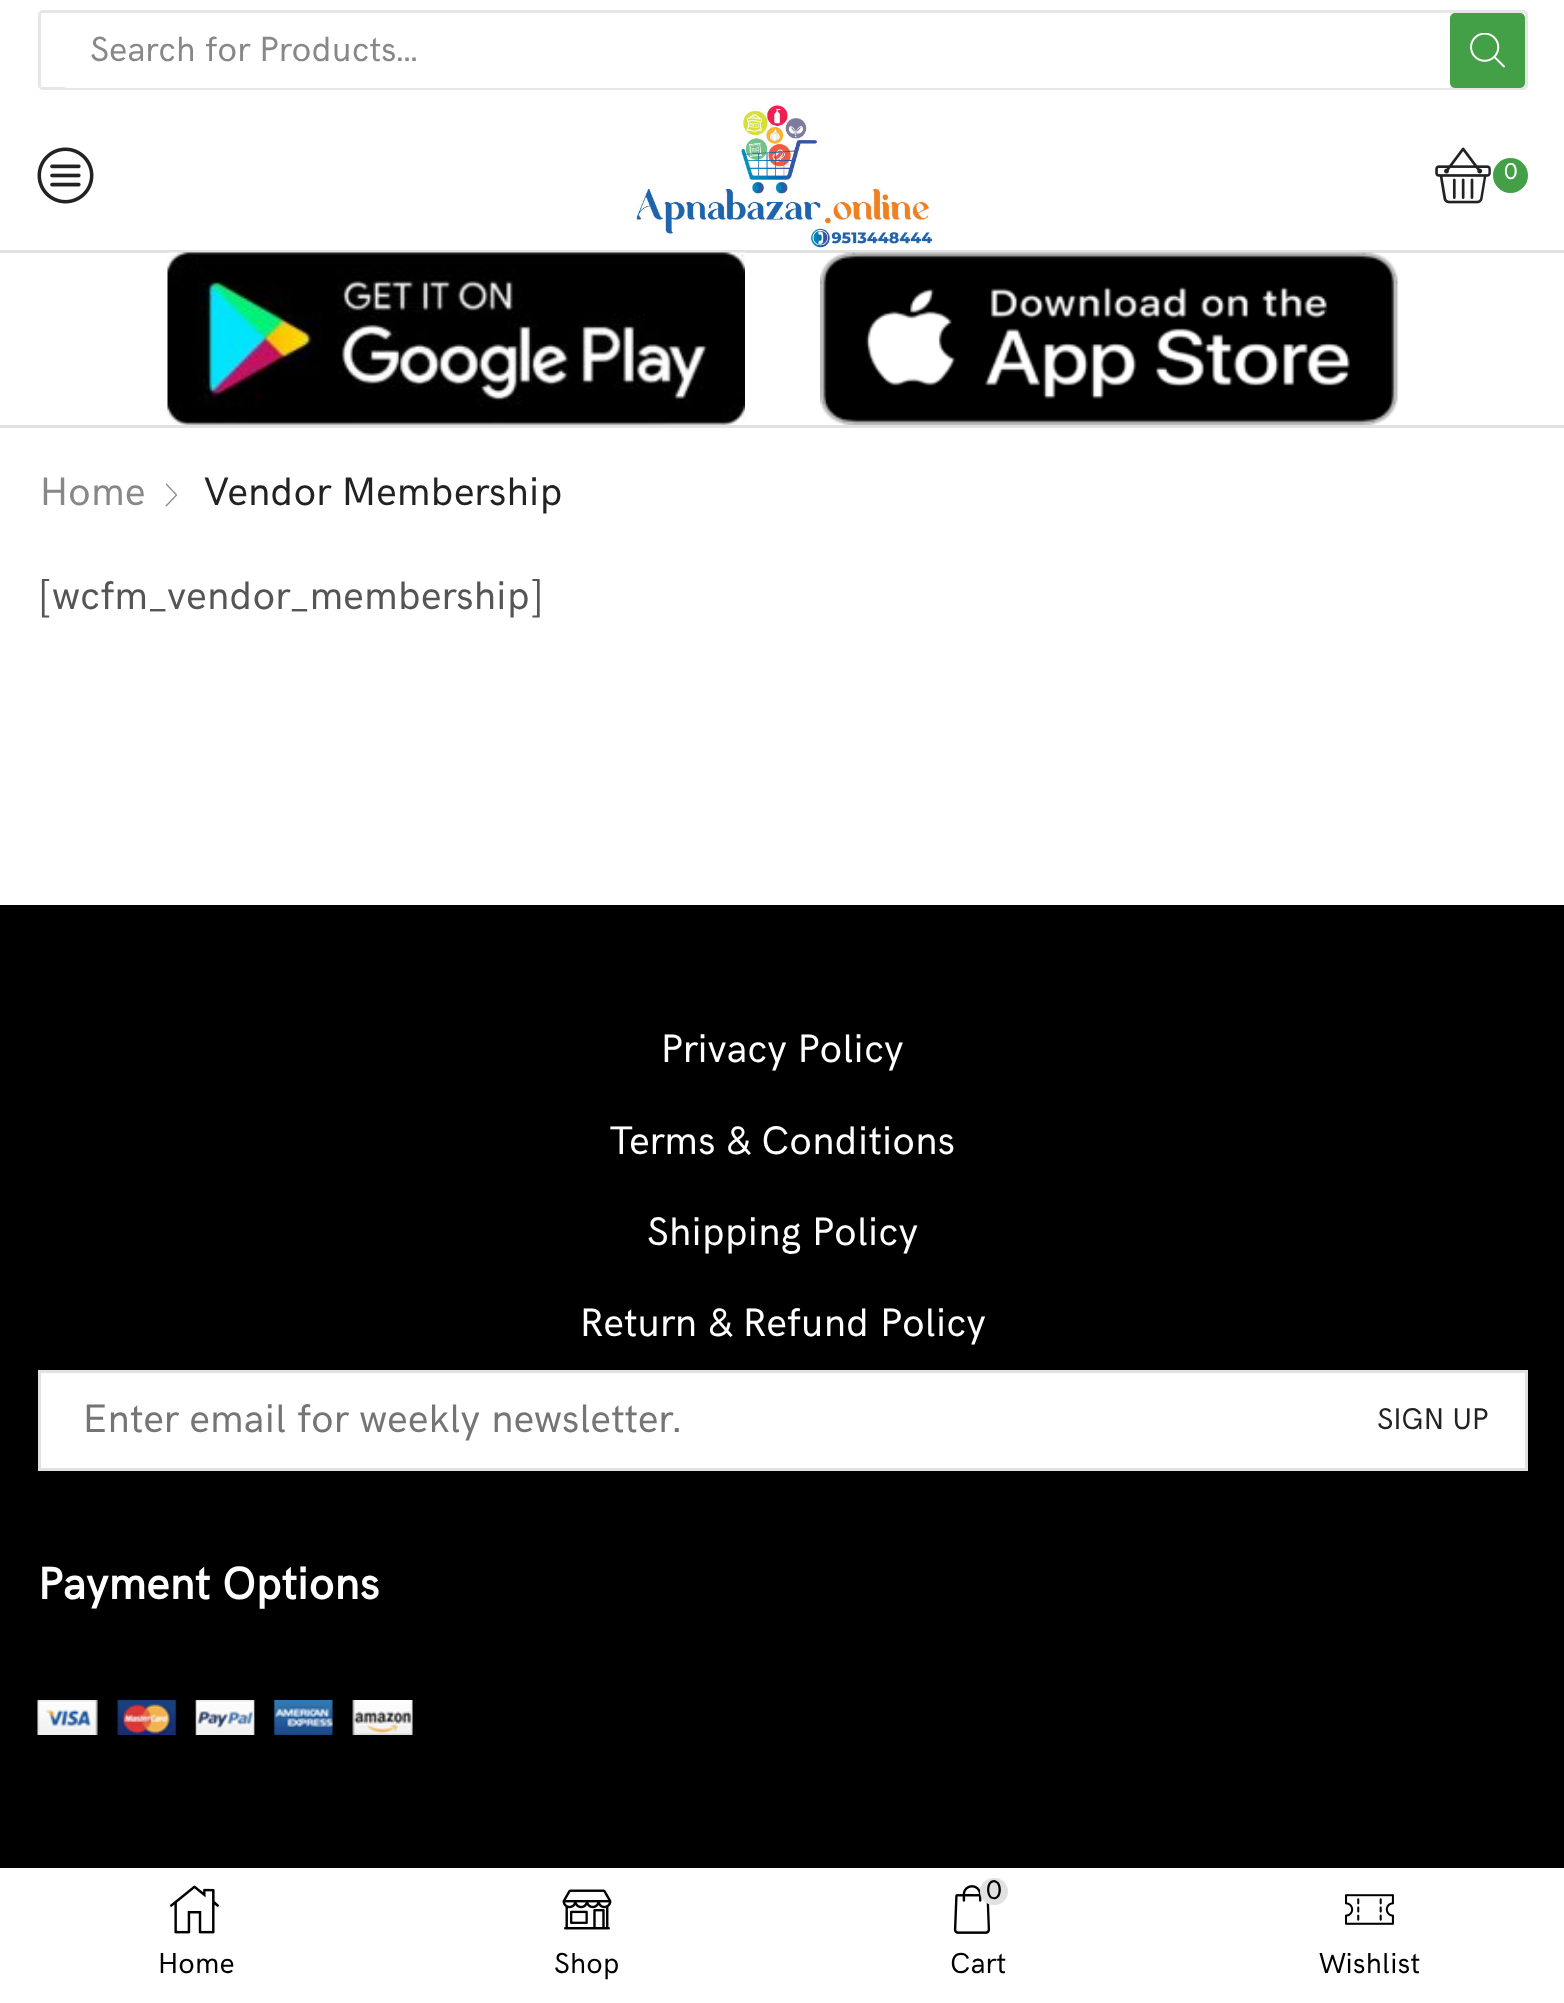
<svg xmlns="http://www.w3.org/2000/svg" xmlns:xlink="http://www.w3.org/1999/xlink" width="1564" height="2003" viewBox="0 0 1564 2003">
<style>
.cls-1{font:35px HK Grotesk;fill:#888888}
.cls-2{font:23px HK Grotesk;fill:#ffffff}
.cls-3{font:40px HK Grotesk;fill:#888888}
.cls-4{font:40px HK Grotesk;fill:#222222}
.cls-5{font:40px HK Grotesk;fill:#555555}
.cls-6{font:39.9px HK Grotesk;fill:#ffffff}
.cls-7{font:39.9px HK Grotesk;fill:#757575}
.cls-8{font:30px HK Grotesk;fill:#222222}
.cls-9{font:bold 45px HK Grotesk;fill:#ffffff}
.cls-10{font:29px HK Grotesk;fill:#000000}
.cls-11{font:27px HK Grotesk;fill:#000000}
</style>
<rect width="100%" height="100%" fill="#ffffff"/>
<rect fill="none" stroke="#e6e6e6" stroke-width="3" x="39.5" y="11.5" width="1487" height="77" rx="3.5"/>
<rect fill="#ffffff" x="65" y="87" width="1385" height="1"/>
<rect fill="#43a047" x="1450" y="13" width="75" height="75" rx="5"/>
<image xlink:href="image0.png" x="1470" y="33" width="35" height="35"/>
<rect fill="#e1e1e1" x="0" y="250" width="1564" height="3"/>
<image xlink:href="image1.png" x="37" y="147" width="57" height="57"/>
<image xlink:href="image2.png" x="632" y="102" width="301" height="146"/>
<image xlink:href="image3.png" x="1435" y="147" width="56" height="57"/>
<circle fill="#43a047" cx="1510.5" cy="175.5" r="17.5"/>
<rect fill="#e1e1e1" x="0" y="425" width="1564" height="3"/>
<image xlink:href="image4.png" x="167" y="252" width="578" height="173"/>
<image xlink:href="image5.png" x="820" y="252" width="578" height="173"/>
<image xlink:href="image6.png" x="165" y="483" width="13" height="24"/>
<rect fill="#000000" x="0" y="905" width="1564" height="963"/>
<rect fill="#ffffff" x="41" y="1373" width="1484" height="95"/>
<rect fill="#e1e1e1" x="38" y="1370" width="1490" height="3"/>
<rect fill="#e1e1e1" x="38" y="1468" width="1302" height="3"/>
<rect fill="#e1e1e1" x="38" y="1370" width="3" height="100"/>
<rect fill="#e1e1e1" x="1525" y="1370" width="3" height="100"/>
<rect fill="#e1e1e1" x="1340" y="1468" width="188" height="3"/>
<image xlink:href="image7.png" x="37" y="1700" width="376" height="35"/>
<rect fill="#000000" fill-opacity="0.15" filter="blur(15px)" x="5" y="1868" width="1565" height="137"/>
<rect fill="#ffffff" x="0" y="1868" width="1564" height="135"/>
<image xlink:href="image8.png" x="170" y="1885" width="49" height="49"/>
<image xlink:href="image9.png" x="562" y="1889" width="50" height="41"/>
<image xlink:href="image10.png" x="953" y="1885" width="37" height="49"/>
<rect fill="#e1e1e1" x="980" y="1878" width="28" height="27" rx="13.5"/>
<image xlink:href="image11.png" x="1345" y="1894" width="49" height="31"/>
<text class="cls-1" x="90" y="61">Search for Products...</text>
<text class="cls-2" x="1504" y="179">0</text>
<text class="cls-3" x="40" y="505">Home</text>
<text class="cls-4" x="204" y="505">Vendor Membership</text>
<text class="cls-5" x="38" y="609">[wcfm_vendor_membership]</text>
<text class="cls-6" x="661" y="1062">Privacy Policy</text>
<text class="cls-6" x="610" y="1154">Terms &amp; Conditions</text>
<text class="cls-6" x="647" y="1245">Shipping Policy</text>
<text class="cls-6" x="580" y="1336">Return &amp; Refund Policy</text>
<text class="cls-7" x="83" y="1432">Enter email for weekly newsletter.</text>
<text class="cls-8" x="1377" y="1429">SIGN UP</text>
<text class="cls-9" x="38" y="1599">Payment Options</text>
<text class="cls-10" x="158" y="1973">Home</text>
<text class="cls-10" x="554" y="1973">Shop</text>
<text class="cls-11" x="986" y="1899">0</text>
<text class="cls-10" x="950" y="1973">Cart</text>
<text class="cls-10" x="1319" y="1973">Wishlist</text>
</svg>
